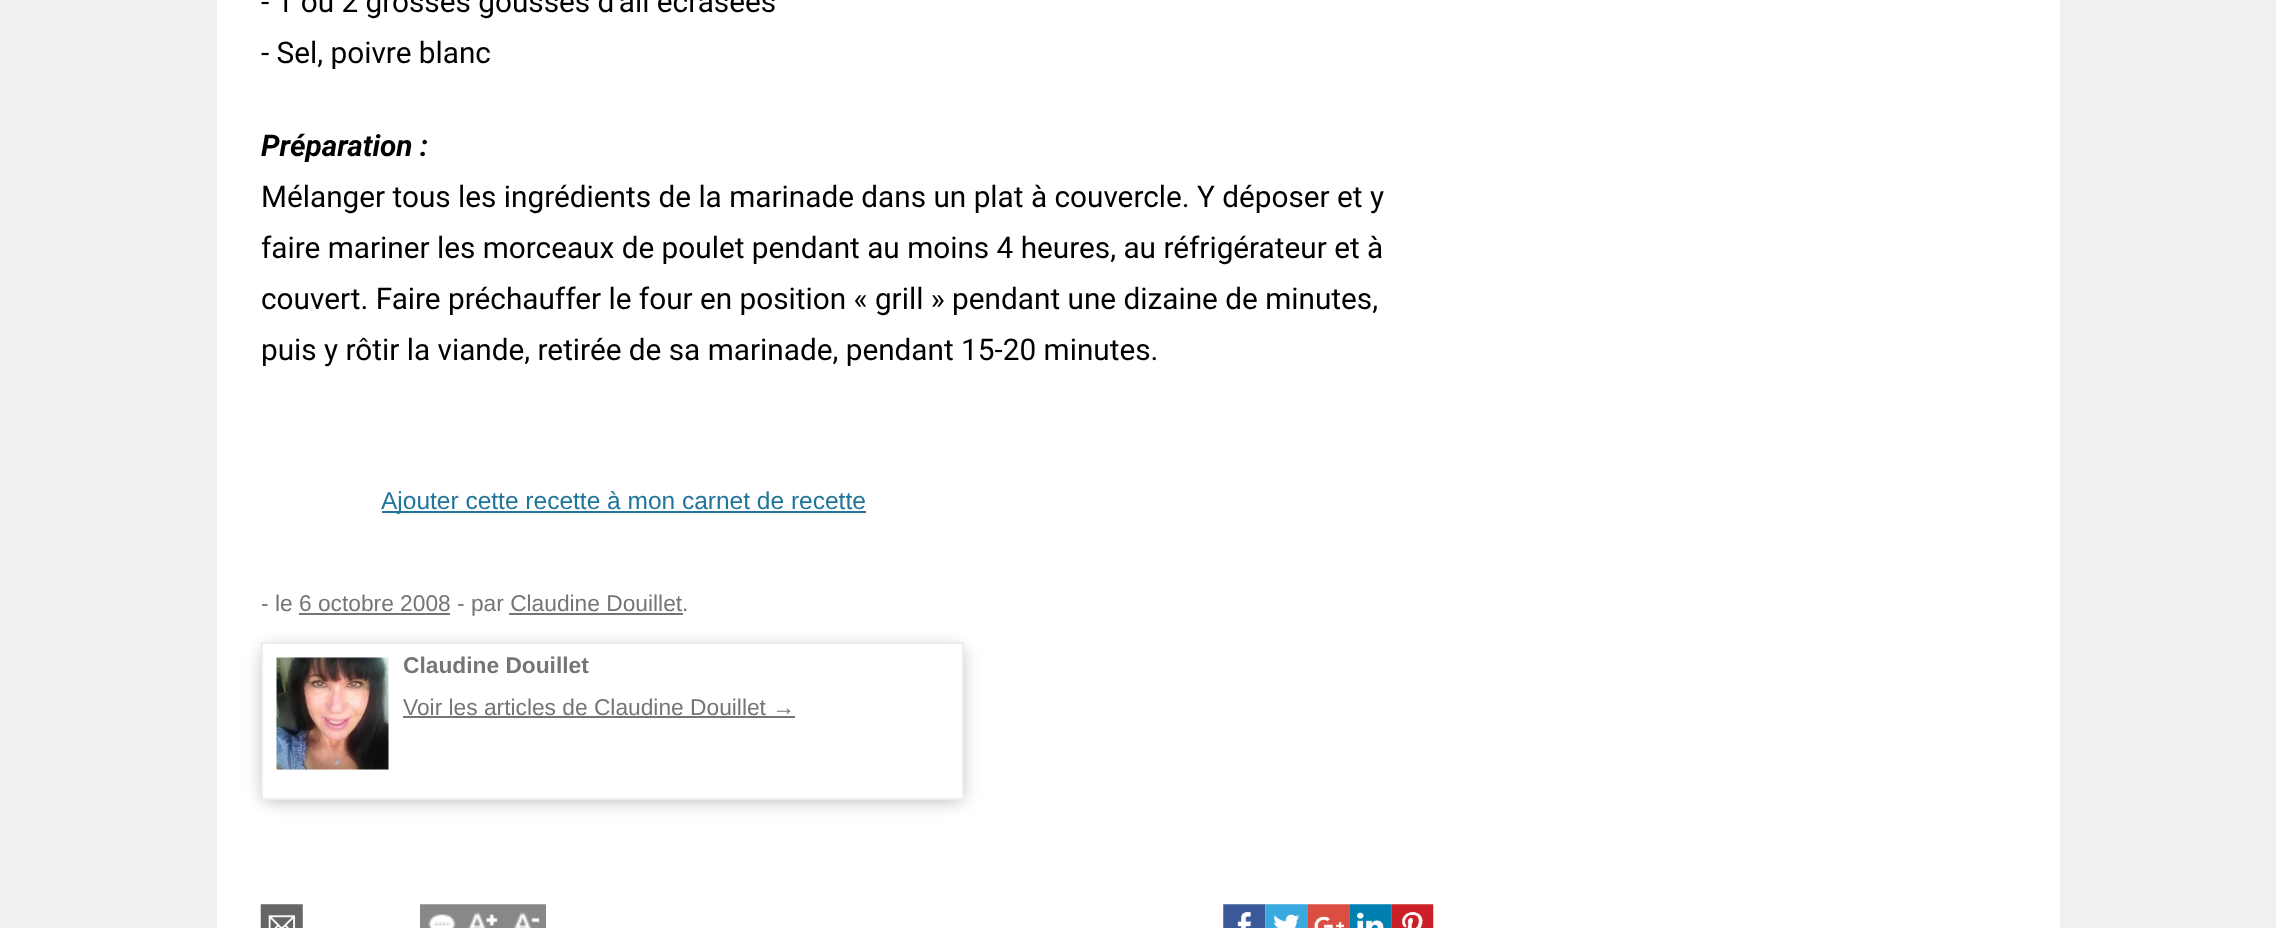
<svg xmlns="http://www.w3.org/2000/svg" xmlns:xlink="http://www.w3.org/1999/xlink" width="2276" height="928" viewBox="0 0 2276 928">
<style>
.cls-1{font:29.75px Roboto;fill:#000000}
.cls-2{font:italic bold 29.75px Roboto;fill:#000000}
.cls-3{font:24.5px Liberation Sans;fill:#21759b}
.cls-4{font:22.75px Liberation Sans;fill:#757575}
.cls-5{font:bold 22.75px Liberation Sans;fill:#757575}
</style>
<defs>
<clipPath id="clip1"><path d="M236 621H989V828H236ZM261 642H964V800H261Z" clip-rule="evenodd"/></clipPath>
</defs>
<rect width="100%" height="100%" fill="#f1f1f1"/>
<rect fill="#ffffff" x="217" y="0" width="1843" height="928"/>
<rect fill="#21759b" x="382" y="511" width="484" height="2"/>
<rect fill="#757575" x="299" y="613" width="151" height="2"/>
<rect fill="#757575" x="509" y="613" width="174" height="2"/>
<g clip-path="url(#clip1)">
<rect fill="#000000" fill-opacity="0.3" filter="blur(9px)" x="264" y="649" width="697" height="151"/>
</g>
<rect fill="none" stroke="#ededed" stroke-width="2" x="262" y="643" width="701" height="156"/>
<image xlink:href="image0.png" x="276" y="657" width="113" height="113"/>
<rect fill="#757575" x="403" y="716" width="392" height="2"/>
<image xlink:href="image1.png" x="260" y="904" width="43" height="24"/>
<image xlink:href="image2.png" x="420" y="904" width="42" height="24"/>
<image xlink:href="image3.png" x="462" y="904" width="42" height="24"/>
<image xlink:href="image4.png" x="504" y="904" width="42" height="24"/>
<image xlink:href="image5.png" x="1223" y="904" width="43" height="24"/>
<image xlink:href="image6.png" x="1265" y="904" width="43" height="24"/>
<image xlink:href="image7.png" x="1307" y="904" width="43" height="24"/>
<image xlink:href="image8.png" x="1349" y="904" width="43" height="24"/>
<image xlink:href="image9.png" x="1391" y="904" width="43" height="24"/>
<text class="cls-1"><tspan x="261" y="12">- 1 ou 2 grosses gousses d'ail écrasées</tspan><tspan x="261" y="63">- Sel, poivre blanc</tspan></text>
<text class="cls-2" x="261" y="156">Préparation :</text>
<text class="cls-1"><tspan x="261" y="207">Mélanger tous les ingrédients de la marinade dans un plat à couvercle. Y déposer et y</tspan><tspan x="261" y="258">faire mariner les morceaux de poulet pendant au moins 4 heures, au réfrigérateur et à</tspan><tspan x="261" y="309">couvert. Faire préchauffer le four en position « grill » pendant une dizaine de minutes,</tspan><tspan x="261" y="360">puis y rôtir la viande, retirée de sa marinade, pendant 15-20 minutes.</tspan></text>
<text class="cls-3" x="381" y="509">Ajouter cette recette à mon carnet de recette</text>
<text class="cls-4" x="261" y="611">- le 6 octobre 2008 - par Claudine Douillet.</text>
<text class="cls-5" x="403" y="673">Claudine Douillet</text>
<text class="cls-4" x="403" y="715">Voir les articles de Claudine Douillet →</text>
</svg>
